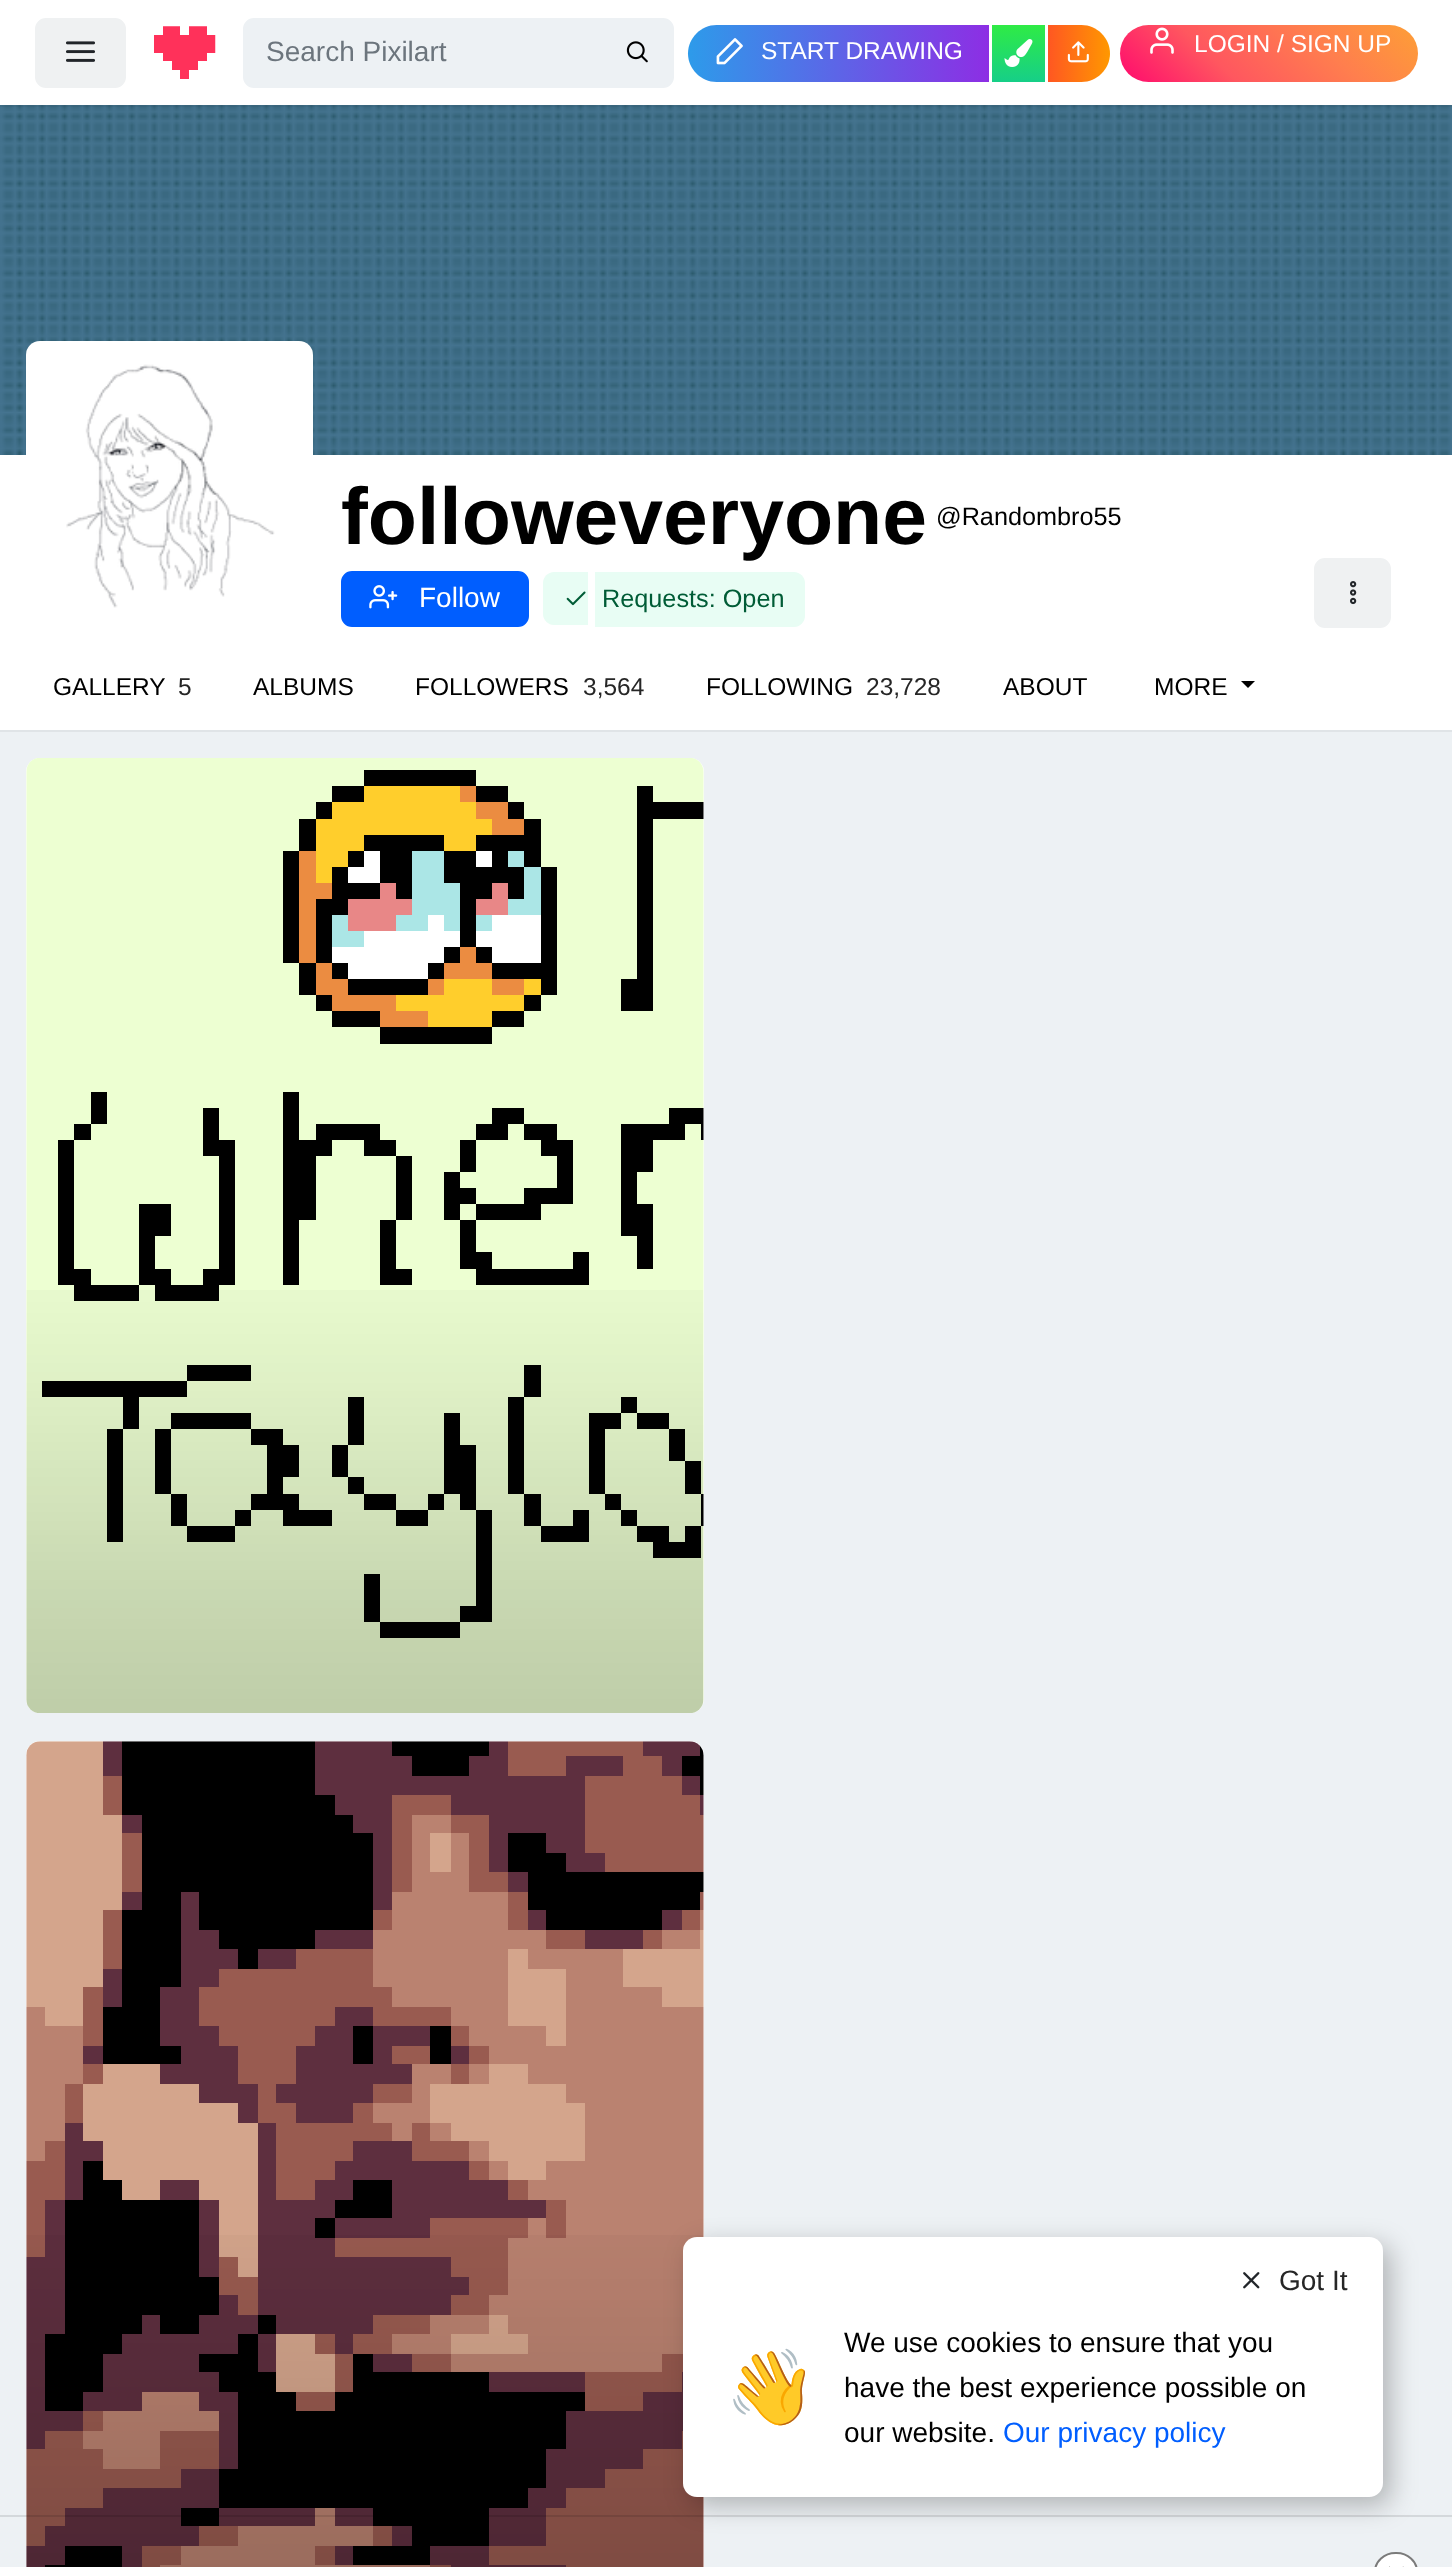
<svg xmlns="http://www.w3.org/2000/svg" xmlns:xlink="http://www.w3.org/1999/xlink" width="1452" height="2567" viewBox="0 0 1452 2567">
<style>
.cls-1{font:28px Liberation Sans;fill:#6c757d}
.cls-2{font:24.5px Liberation Sans;fill:#ffffff}
.cls-3{font:bold 80.5px Liberation Sans;fill:#000000}
.cls-4{font:25.25px Liberation Sans;fill:#000000}
.cls-5{font:28px Liberation Sans;fill:#ffffff}
.cls-6{font:25.25px Liberation Sans;fill:#005c36}
.cls-7{font:24.5px Liberation Sans;fill:#000000}
.cls-8{font:24.5px Liberation Sans;fill:#262626}
.cls-9{font:28px Liberation Sans;fill:#262626}
.cls-10{font:74px Noto Color Emoji;fill:#000000}
.cls-11{font:28px Liberation Sans;fill:#000000}
.cls-12{font:28px Liberation Sans;fill:#005eff}
</style>
<defs>
<linearGradient id="g1" gradientUnits="userSpaceOnUse" x1="688" y1="53" x2="989" y2="53"><stop offset="0" stop-color="#2d9bea"/><stop offset="1" stop-color="#8d2ee4"/></linearGradient>
<linearGradient id="g2" gradientUnits="userSpaceOnUse" x1="1019" y1="82" x2="1019" y2="25"><stop offset="0" stop-color="#16cf88"/><stop offset="1" stop-color="#2feb45"/></linearGradient>
<linearGradient id="g3" gradientUnits="userSpaceOnUse" x1="1048" y1="53" x2="1110" y2="53"><stop offset="0" stop-color="#ff5722"/><stop offset="1" stop-color="#ff9800"/></linearGradient>
<linearGradient id="g4" gradientUnits="userSpaceOnUse" x1="1183" y1="143" x2="1355" y2="-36"><stop offset="0" stop-color="#ff096e"/><stop offset="0.33" stop-color="#ff575f"/><stop offset="0.67" stop-color="#ff7e4e"/><stop offset="1" stop-color="#fd9f36"/></linearGradient>
</defs>
<rect width="100%" height="100%" fill="#edf1f4"/>
<image xlink:href="image7.png" x="0" y="105" width="1452" height="350"/>
<rect fill="none" stroke="#000000" stroke-opacity="0.05" stroke-width="2" x="-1" y="-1" width="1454" height="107"/>
<rect fill="#ffffff" x="0" y="0" width="1452" height="105"/>
<rect fill="#eff1f2" stroke="#eff1f2" stroke-width="2" x="36" y="19" width="89" height="68" rx="10"/>
<image xlink:href="image0.png" x="66" y="41" width="29" height="21"/>
<image xlink:href="image1.png" x="154" y="26" width="62" height="53"/>
<rect fill="#edf1f4" stroke="#edf1f4" stroke-width="2" x="244" y="19" width="429" height="68" rx="10"/>
<image xlink:href="image2.png" x="626" y="41" width="22" height="22"/>
<path fill="url(#g1)" d="M716.5 25H989V82H716.5C701 82 688 69 688 53.5C688 38 701 25 716.5 25Z"/>
<image xlink:href="image3.png" x="716" y="38" width="27" height="27"/>
<rect fill="url(#g2)" x="992" y="25" width="53" height="57"/>
<image xlink:href="image4.png" x="1004" y="39" width="29" height="28"/>
<path fill="url(#g3)" d="M1048 25H1081.5C1097 25 1110 38 1110 53.5C1110 69 1097 82 1081.5 82H1048Z"/>
<image xlink:href="image5.png" x="1067" y="41" width="22" height="22"/>
<rect fill="url(#g4)" x="1120" y="25" width="298" height="57" rx="28.5"/>
<image xlink:href="image6.png" x="1150" y="27" width="24" height="27"/>
<rect fill="none" stroke="#000000" stroke-opacity="0.05" stroke-width="2" x="-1" y="642" width="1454" height="89"/>
<rect fill="#ffffff" x="0" y="455" width="1452" height="275"/>
<rect fill="#ffffff" x="26" y="341" width="287" height="287" rx="14"/>
<image xlink:href="image8.png" x="66" y="364" width="209" height="244"/>
<rect fill="#005eff" stroke="#005eff" stroke-width="2" x="342" y="572" width="186" height="54" rx="10"/>
<image xlink:href="image9.png" x="369" y="585" width="29" height="24"/>
<path fill="#e8fdf4" d="M554 572H588V625H554C548 625 543 620 543 614V583C543 577 548 572 554 572Z"/>
<image xlink:href="image10.png" x="566" y="591" width="20" height="15"/>
<path fill="#e8fdf4" d="M595 572H794C800 572 805 577 805 583V616C805 622 800 627 794 627H595Z"/>
<rect fill="#eff1f2" stroke="#eff1f2" stroke-width="2" x="1315" y="559" width="75" height="68" rx="10"/>
<image xlink:href="image11.png" x="1350" y="581" width="7" height="24"/>
<path fill="#000000" d="M1241 681H1255L1248 688Z"/>
<rect fill="#ffffff" x="26" y="758" width="678" height="955" rx="14"/>
<image xlink:href="image12.png" x="26" y="758" width="678" height="955"/>
<image xlink:href="image13.png" x="26" y="1290" width="678" height="423"/>
<rect fill="#ffffff" x="26" y="1741" width="678" height="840" rx="14"/>
<image xlink:href="image14.png" x="26" y="1741" width="678" height="826"/>
<image xlink:href="image15.png" x="26" y="2235" width="678" height="332"/>
<rect fill="#000000" fill-opacity="0.25" filter="blur(13px)" x="691" y="2245" width="700" height="261" rx="14"/>
<rect fill="#ffffff" x="683" y="2237" width="700" height="260" rx="14"/>
<image xlink:href="image16.png" x="1243" y="2272" width="17" height="17"/>
<rect fill="#000000" fill-opacity="0.1" x="0" y="2515" width="1452" height="2"/>
<rect fill="#ffffff" stroke="#7b7b7b" stroke-width="2" x="1375" y="2553" width="42" height="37" rx="20.5"/>
<image xlink:href="image17.png" x="1389" y="2566" width="15" height="1"/>
<text class="cls-1" x="266" y="61">Search Pixilart</text>
<text class="cls-2" x="761" y="59">START DRAWING</text>
<text class="cls-2" x="1194" y="52">LOGIN / SIGN UP</text>
<text class="cls-3" x="341" y="544">followeveryone</text>
<text class="cls-4" x="936" y="525">@Randombro55</text>
<text class="cls-5" x="419" y="607">Follow</text>
<text class="cls-6" x="602" y="607">Requests: Open</text>
<text class="cls-7" x="53" y="695">GALLERY</text>
<text class="cls-8" x="178" y="695">5</text>
<text class="cls-7" x="253" y="695">ALBUMS</text>
<text class="cls-7" x="415" y="695">FOLLOWERS</text>
<text class="cls-8" x="583" y="695">3,564</text>
<text class="cls-7" x="706" y="695">FOLLOWING</text>
<text class="cls-8" x="866" y="695">23,728</text>
<text class="cls-7" x="1003" y="695">ABOUT</text>
<text class="cls-7" x="1154" y="695">MORE</text>
<text class="cls-9" x="1279" y="2290">Got It</text>
<text class="cls-10" x="725" y="2413">👋</text>
<text class="cls-11"><tspan x="844" y="2352">We use cookies to ensure that you</tspan><tspan x="844" y="2397">have the best experience possible on</tspan><tspan x="844" y="2442">our website.</tspan></text>
<text class="cls-12" x="1003" y="2442">Our privacy policy</text>
</svg>
